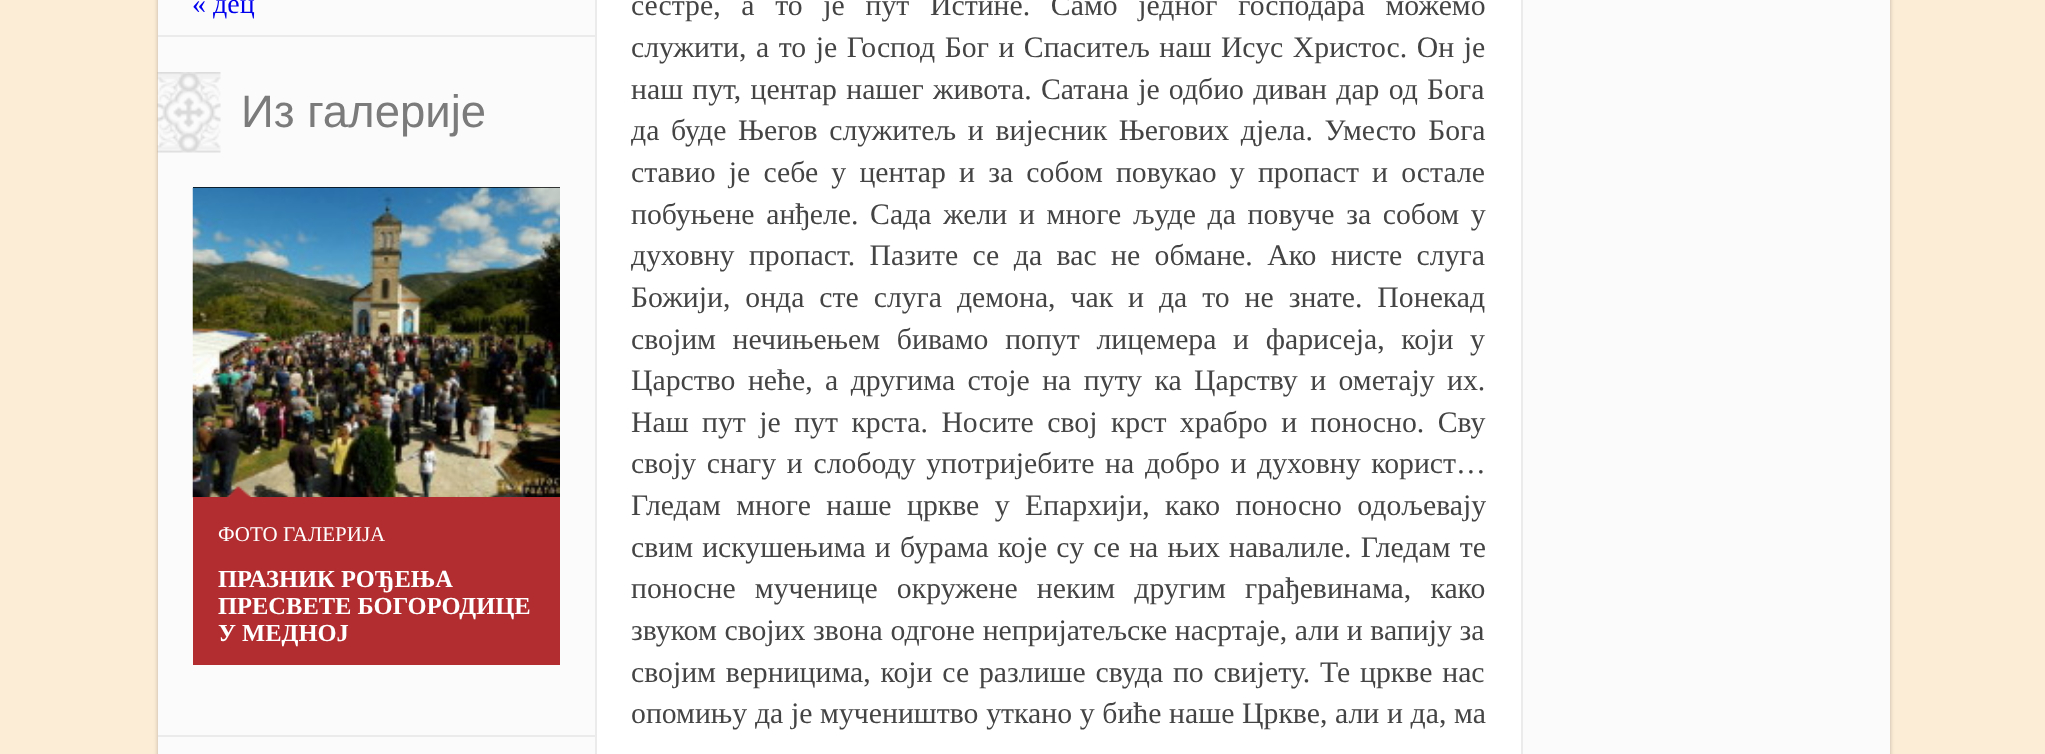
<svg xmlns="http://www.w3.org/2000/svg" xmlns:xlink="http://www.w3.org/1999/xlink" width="2045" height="754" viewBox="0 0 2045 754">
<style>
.cls-1{font:28px Liberation Serif;fill:#0000ee}
.cls-2{font:45.5px Liberation Sans;fill:#7b7b7b}
.cls-3{font:21px Liberation Serif;fill:#ffffff}
.cls-4{font:bold 24.5px Liberation Serif;fill:#ffffff}
.cls-5{font:29.75px Liberation Serif;fill:#444444}
</style>
<rect width="100%" height="100%" fill="#fcedd6"/>
<rect fill="#000000" fill-opacity="0.25" filter="blur(2px)" x="158" y="-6" width="1732" height="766"/>
<rect fill="#fbfbfb" x="158" y="0" width="437" height="754"/>
<rect fill="#ebebeb" x="595" y="0" width="2" height="754"/>
<rect fill="#ebebeb" x="158" y="35" width="437" height="2"/>
<image xlink:href="image0.png" x="157" y="72" width="64" height="81"/>
<rect fill="#ebebeb" x="158" y="735" width="437" height="2"/>
<rect fill="#000000" x="193" y="187" width="367" height="1"/>
<image xlink:href="image1.png" x="192" y="187" width="368" height="311"/>
<rect fill="#b22d30" x="193" y="497" width="367" height="168"/>
<image xlink:href="image2.png" x="227" y="485" width="26" height="12"/>
<rect fill="#ffffff" x="597" y="0" width="924" height="754"/>
<rect fill="#fbfbfb" x="1523" y="0" width="367" height="754"/>
<rect fill="#ebebeb" x="1521" y="0" width="2" height="754"/>
<text class="cls-1" x="192" y="13">« дец</text>
<text class="cls-2" x="241" y="127">Из галерије</text>
<text class="cls-3" x="218" y="541">ФОТО ГАЛЕРИЈА</text>
<text class="cls-4"><tspan x="218" y="587">ПРАЗНИК РОЂЕЊА</tspan><tspan x="218" y="614">ПРЕСВЕТЕ БОГОРОДИЦЕ</tspan><tspan x="218" y="641">У МЕДНОЈ</tspan></text>
<text class="cls-5"><tspan x="631" y="15" word-spacing="13.25">сестре, а то је пут Истине. Само једног господара можемо</tspan><tspan x="631" y="57" word-spacing="2.1">служити, а то је Господ Бог и Спаситељ наш Исус Христос. Он је</tspan><tspan x="631" y="99" word-spacing="1.8">наш пут, центар нашег живота. Сатана је одбио диван дар од Бога</tspan><tspan x="631" y="140" word-spacing="4.25">да буде Његов служитељ и вијесник Његових дјела. Уместо Бога</tspan><tspan x="631" y="182" word-spacing="5.75">ставио је себе у центар и за собом повукао у пропаст и остале</tspan><tspan x="631" y="224" word-spacing="4.25">побуњене анђеле. Сада жели и многе људе да повуче за собом у</tspan><tspan x="631" y="265" word-spacing="7">духовну пропаст. Пазите се да вас не обмане. Ако нисте слуга</tspan><tspan x="631" y="307" word-spacing="7.5">Божији, онда сте слуга демона, чак и да то не знате. Понекад</tspan><tspan x="631" y="349" word-spacing="9.25">својим нечињењем бивамо попут лицемера и фарисеја, који у</tspan><tspan x="631" y="390" word-spacing="5">Царство неће, а другима стоје на путу ка Царству и ометају их.</tspan><tspan x="631" y="432" word-spacing="6">Наш пут је пут крста. Носите свој крст храбро и поносно. Сву</tspan><tspan x="631" y="473" word-spacing="3.25">своју снагу и слободу употријебите на добро и духовну корист…</tspan><tspan x="631" y="515" word-spacing="8">Гледам многе наше цркве у Епархији, како поносно одољевају</tspan><tspan x="631" y="557" word-spacing="1.75">свим искушењима и бурама које су се на њих навалиле. Гледам те</tspan><tspan x="631" y="598" word-spacing="11.75">поносне мученице окружене неким другим грађевинама, како</tspan><tspan x="631" y="640" word-spacing="0.25">звуком својих звона одгоне непријатељске насртаје, али и вапију за</tspan><tspan x="631" y="682" word-spacing="2.4">својим верницима, који се разлише свуда по свијету. Те цркве нас</tspan><tspan x="631" y="723" word-spacing="0.25">опомињу да је мучеништво уткано у биће наше Цркве, али и да, ма</tspan></text>
</svg>
